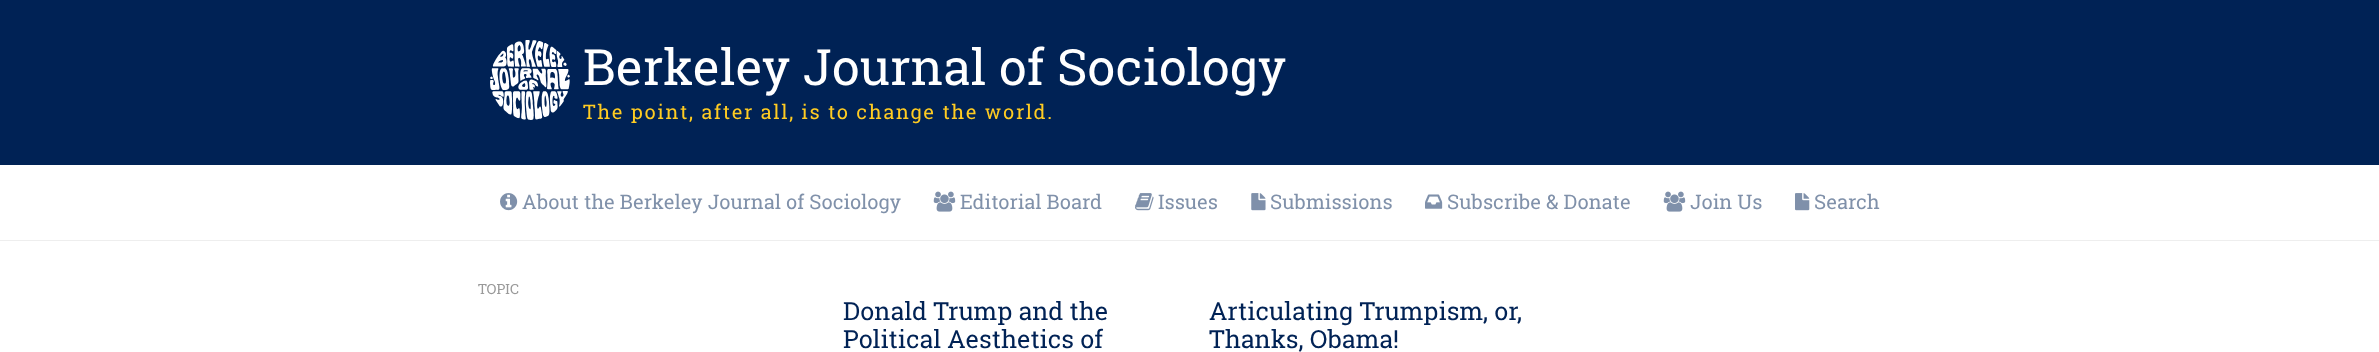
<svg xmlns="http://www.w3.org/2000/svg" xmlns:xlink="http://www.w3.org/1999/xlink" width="2379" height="352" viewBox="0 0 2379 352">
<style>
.cls-1{font:50px Roboto Slab;fill:#ffffff}
.cls-2{font:20px Roboto Slab;letter-spacing:1.65px;fill:#ffcc22}
.cls-3{font:20px Roboto Slab;fill:#8091aa}
.cls-4{font:14px Roboto Slab;fill:#999999}
.cls-5{font:25px Roboto Slab;fill:#002255}
</style>
<rect width="100%" height="100%" fill="#ffffff"/>
<rect fill="#002255" x="0" y="0" width="2379" height="165"/>
<rect fill="#eeeeee" x="0" y="240" width="2379" height="1"/>
<image xlink:href="image0.png" x="490" y="40" width="80" height="80"/>
<image xlink:href="image1.png" x="500" y="193" width="18" height="18"/>
<image xlink:href="image2.png" x="933" y="191" width="23" height="21"/>
<image xlink:href="image3.png" x="1135" y="193" width="19" height="18"/>
<image xlink:href="image4.png" x="1251" y="193" width="15" height="18"/>
<image xlink:href="image5.png" x="1425" y="194" width="18" height="15"/>
<image xlink:href="image2.png" x="1663" y="191" width="23" height="21"/>
<image xlink:href="image6.png" x="1795" y="193" width="15" height="18"/>
<text class="cls-1" x="583" y="85">Berkeley Journal of Sociology</text>
<text class="cls-2" x="583" y="119">The point, after all, is to change the world.</text>
<text class="cls-3" x="522" y="209">About the Berkeley Journal of Sociology</text>
<text class="cls-3" x="960" y="209">Editorial Board</text>
<text class="cls-3" x="1158" y="209">Issues</text>
<text class="cls-3" x="1270" y="209">Submissions</text>
<text class="cls-3" x="1447" y="209">Subscribe &amp; Donate</text>
<text class="cls-3" x="1690" y="209">Join Us</text>
<text class="cls-3" x="1814" y="209">Search</text>
<text class="cls-4" x="478" y="294">TOPIC</text>
<text class="cls-5"><tspan x="843" y="320">Donald Trump and the</tspan><tspan x="843" y="348">Political Aesthetics of</tspan></text>
<text class="cls-5"><tspan x="1209" y="320">Articulating Trumpism, or,</tspan><tspan x="1209" y="348">Thanks, Obama!</tspan></text>
</svg>
